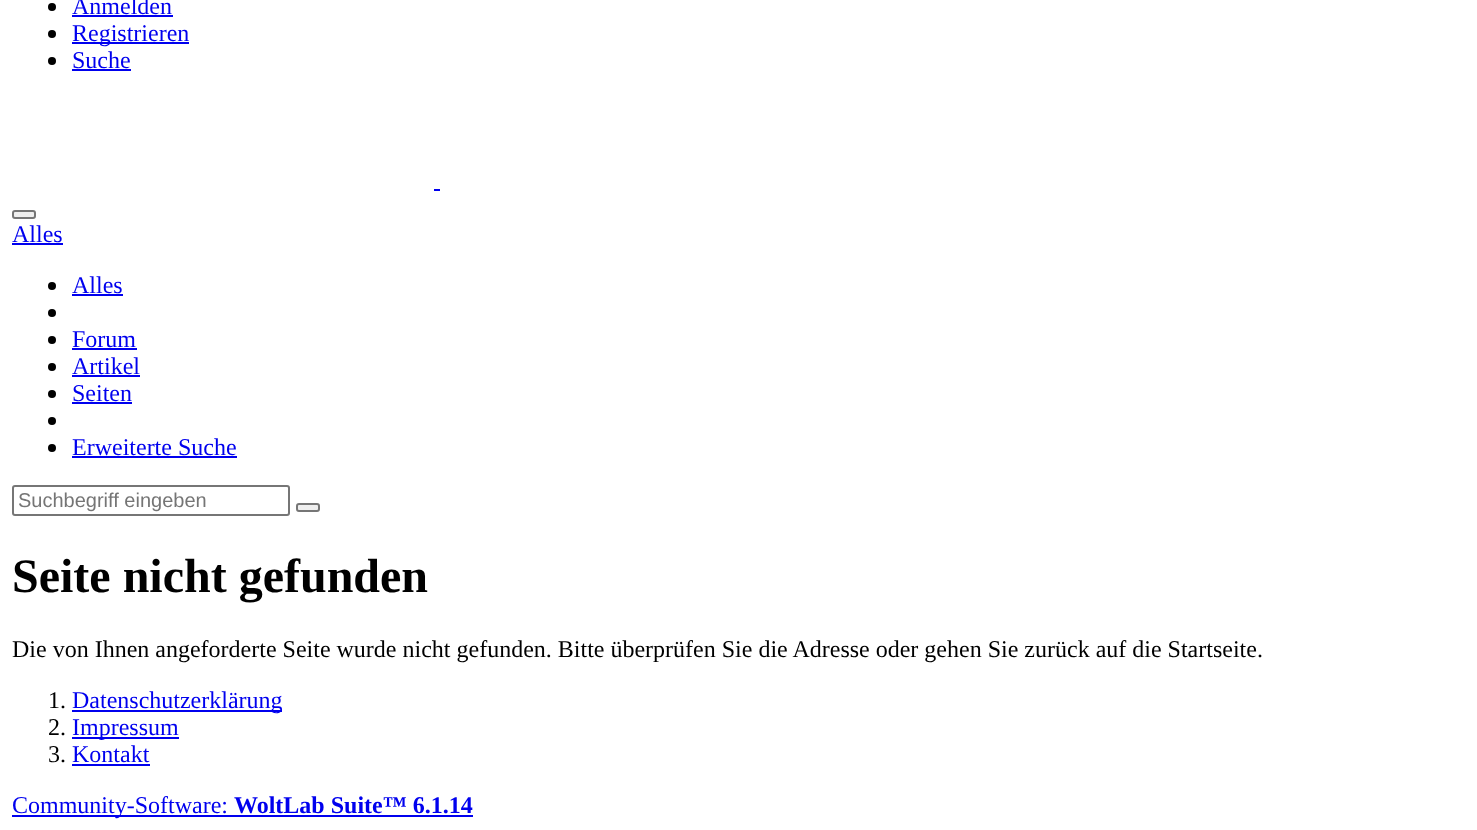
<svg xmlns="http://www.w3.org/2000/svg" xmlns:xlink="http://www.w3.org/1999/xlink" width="1477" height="830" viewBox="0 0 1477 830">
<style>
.cls-1{font:24px Liberation Serif;fill:#0000ee}
.cls-2{font:20px Liberation Sans;fill:#757575}
.cls-3{font:bold 48px Liberation Serif;fill:#000000}
.cls-4{font:24px Liberation Serif;fill:#000000}
.cls-5{font:bold 24px Liberation Serif;fill:#0000ee}
</style>
<rect width="100%" height="100%" fill="#ffffff"/>
<circle fill="#000000" cx="52" cy="7" r="4"/>
<rect fill="#0000ee" x="72" y="15" width="101" height="2"/>
<circle fill="#000000" cx="52" cy="34" r="4"/>
<rect fill="#0000ee" x="72" y="42" width="117" height="2"/>
<circle fill="#000000" cx="52" cy="61" r="4"/>
<rect fill="#0000ee" x="72" y="69" width="59" height="2"/>
<rect fill="#0000ee" x="434" y="189" width="6" height="2"/>
<rect fill="#efefef" stroke="#767676" stroke-width="2" x="13" y="211" width="22" height="7" rx="2"/>
<rect fill="#0000ee" x="12" y="243" width="51" height="2"/>
<circle fill="#000000" cx="52" cy="286" r="4"/>
<rect fill="#0000ee" x="72" y="294" width="51" height="2"/>
<circle fill="#000000" cx="52" cy="313" r="4"/>
<circle fill="#000000" cx="52" cy="340" r="4"/>
<rect fill="#0000ee" x="72" y="348" width="65" height="2"/>
<circle fill="#000000" cx="52" cy="367" r="4"/>
<rect fill="#0000ee" x="72" y="375" width="68" height="2"/>
<circle fill="#000000" cx="52" cy="394" r="4"/>
<rect fill="#0000ee" x="72" y="402" width="60" height="2"/>
<circle fill="#000000" cx="52" cy="421" r="4"/>
<circle fill="#000000" cx="52" cy="448" r="4"/>
<rect fill="#0000ee" x="72" y="456" width="165" height="2"/>
<rect fill="none" stroke="#767676" stroke-width="2" x="13" y="486" width="276" height="29" rx="2"/>
<rect fill="#efefef" stroke="#767676" stroke-width="2" x="297" y="504" width="22" height="7" rx="2"/>
<rect fill="#0000ee" x="72" y="710" width="210" height="2"/>
<rect fill="#0000ee" x="72" y="737" width="107" height="2"/>
<rect fill="#0000ee" x="72" y="764" width="78" height="2"/>
<rect fill="#0000ee" x="12" y="815" width="461" height="2"/>
<text class="cls-1"><tspan x="72" y="14">Anmelden</tspan><tspan x="72" y="41">Registrieren</tspan><tspan x="72" y="68">Suche</tspan></text>
<text class="cls-1" x="12" y="242">Alles</text>
<text class="cls-1" x="72" y="293">Alles</text>
<text class="cls-1"><tspan x="72" y="347">Forum</tspan><tspan x="72" y="374">Artikel</tspan><tspan x="72" y="401">Seiten</tspan></text>
<text class="cls-1" x="72" y="455">Erweiterte Suche</text>
<text class="cls-2" x="18" y="507">Suchbegriff eingeben</text>
<text class="cls-3" x="12" y="592">Seite nicht gefunden</text>
<text class="cls-4" x="12" y="657">Die von Ihnen angeforderte Seite wurde nicht gefunden. Bitte überprüfen Sie die Adresse oder gehen Sie zurück auf die Startseite.</text>
<text class="cls-4" x="48" y="708">1.</text>
<text class="cls-1" x="72" y="708">Datenschutzerklärung</text>
<text class="cls-4" x="48" y="735">2.</text>
<text class="cls-1" x="72" y="735">Impressum</text>
<text class="cls-4" x="48" y="762">3.</text>
<text class="cls-1" x="72" y="762">Kontakt</text>
<text class="cls-1" x="12" y="813">Community-Software:</text>
<text class="cls-5" x="234" y="813">WoltLab Suite™ 6.1.14</text>
</svg>
